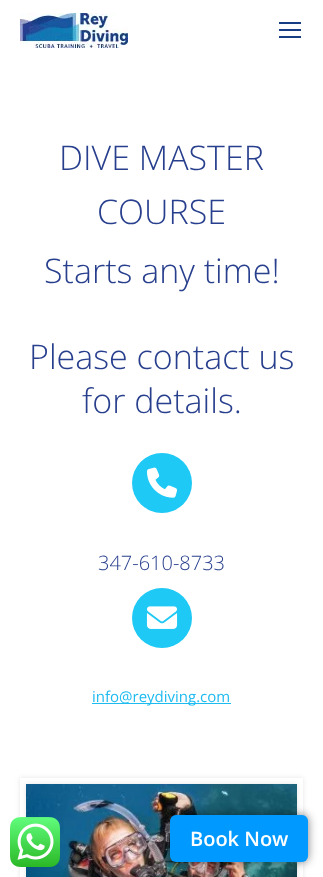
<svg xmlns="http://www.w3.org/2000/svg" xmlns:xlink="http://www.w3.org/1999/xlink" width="323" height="877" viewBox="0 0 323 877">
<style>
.cls-1{font:300 34px Open Sans;fill:#283f8d}
.cls-2{font:300 20px Open Sans;fill:#283f8d}
.cls-3{font:15px Open Sans;fill:#1ebbf0}
.cls-4{font:600 20px Open Sans;fill:#ffffff}
</style>
<defs>
<clipPath id="clip1"><path d="M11 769H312V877H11ZM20 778H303V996H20Z" clip-rule="evenodd"/></clipPath>
</defs>
<rect width="100%" height="100%" fill="#ffffff"/>
<image xlink:href="image0.png" x="20" y="13" width="108" height="35"/>
<rect fill="#173d85" x="279" y="22" width="22" height="2"/>
<rect fill="#173d85" x="279" y="29" width="22" height="2"/>
<rect fill="#173d85" x="279" y="36" width="22" height="2"/>
<circle fill="#1ec9f5" cx="162" cy="483" r="30"/>
<image xlink:href="image1.png" x="146" y="467" width="31" height="31"/>
<circle fill="#1ec9f5" cx="162" cy="618" r="30"/>
<image xlink:href="image2.png" x="146" y="606" width="32" height="23"/>
<rect fill="#1ebbf0" x="92" y="703" width="139" height="1"/>
<g clip-path="url(#clip1)">
<rect fill="#000000" fill-opacity="0.1" filter="blur(2.5px)" x="20" y="778" width="283" height="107"/>
</g>
<rect fill="#000000" fill-opacity="0.1" filter="blur(2.5px)" x="26" y="784" width="271" height="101"/>
<image xlink:href="image3.png" x="26" y="784" width="271" height="93"/>
<image xlink:href="image4.png" x="10" y="817" width="50" height="50"/>
<rect fill="#000000" fill-opacity="0.5" filter="blur(5px)" x="170" y="815" width="138" height="47" rx="6"/>
<rect fill="#0099ff" x="170" y="815" width="138" height="47" rx="6"/>
<text class="cls-1" x="59" y="170">DIVE MASTER</text>
<text class="cls-1" x="97" y="224">COURSE</text>
<text class="cls-1" x="44" y="283">Starts any time!</text>
<text class="cls-1" x="29" y="369">Please contact us</text>
<text class="cls-1" x="82" y="413">for details.</text>
<text class="cls-2" x="98" y="570">347-610-8733</text>
<text class="cls-3" x="92" y="702">info@reydiving.com</text>
<text class="cls-4" x="190" y="846">Book Now</text>
</svg>
